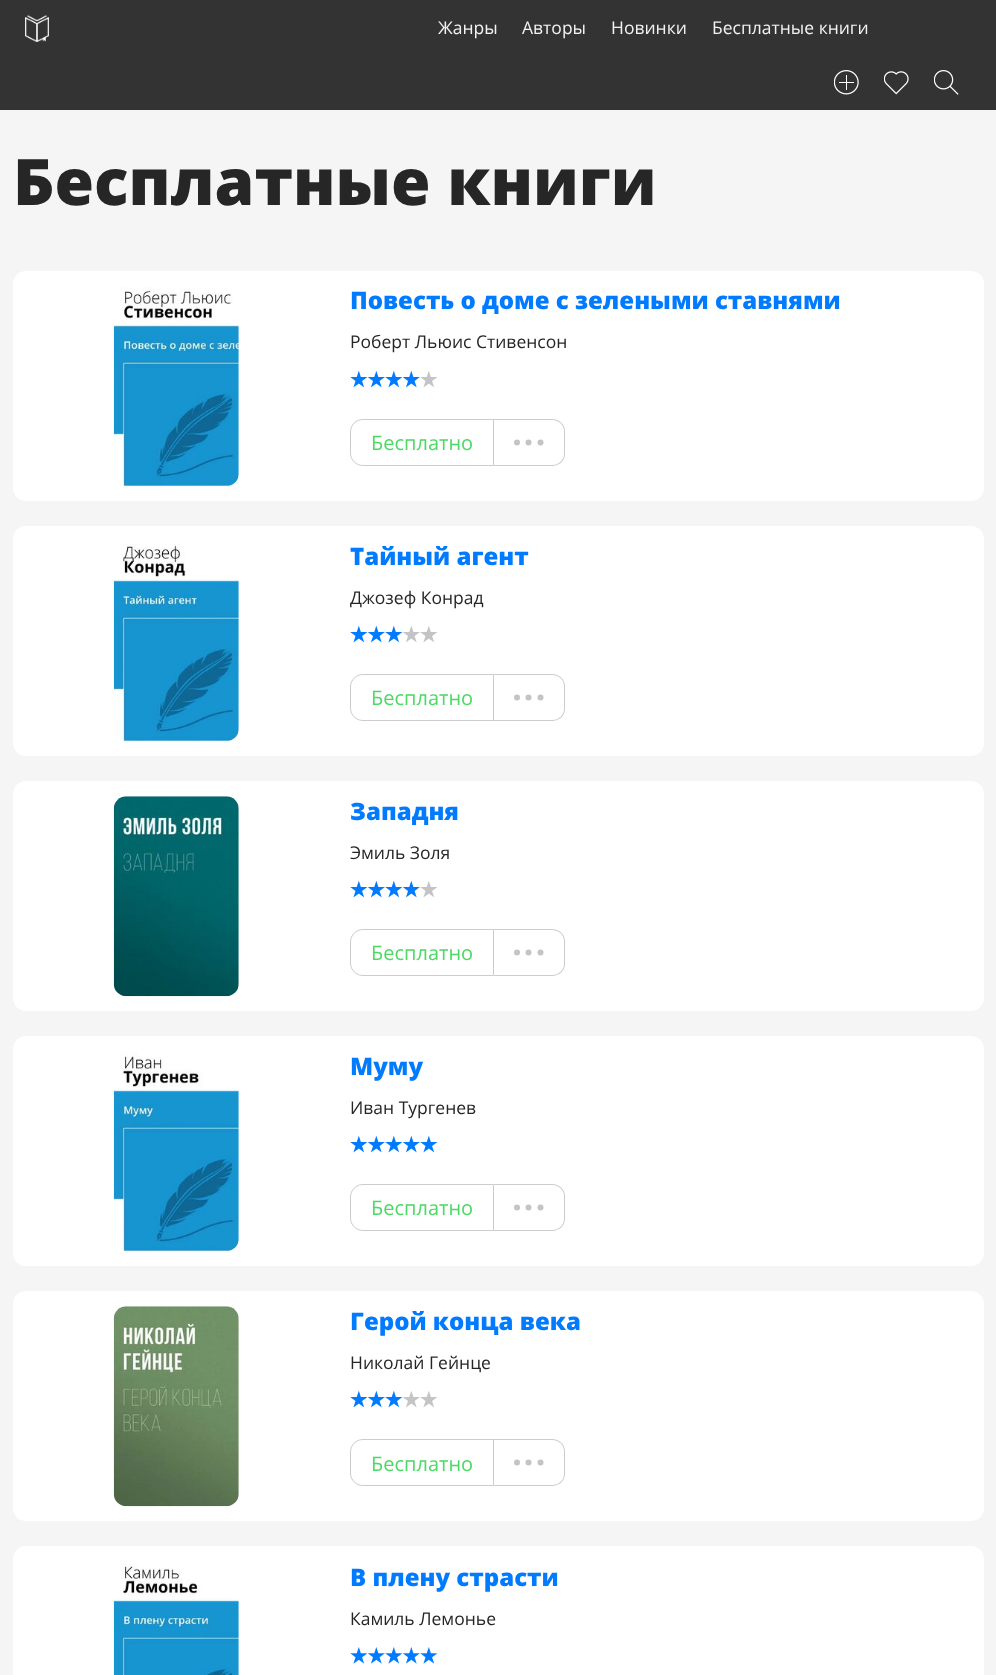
<svg xmlns="http://www.w3.org/2000/svg" xmlns:xlink="http://www.w3.org/1999/xlink" width="996" height="1675" viewBox="0 0 996 1675">
<style>
.cls-1{font:17.5px Open Sans;fill:#f2f2f2}
.cls-2{font:800 64px Open Sans;fill:#262626}
.cls-3{font:800 24px Open Sans;fill:#007aff}
.cls-4{font:17.5px Open Sans;fill:#262626}
.cls-5{font:20px Open Sans;fill:#4cd964}
</style>
<rect width="100%" height="100%" fill="#333333"/>
<image xlink:href="image0.png" x="25" y="15" width="24" height="27"/>
<image xlink:href="image1.png" x="834" y="70" width="25" height="25"/>
<image xlink:href="image2.png" x="884" y="71" width="25" height="24"/>
<image xlink:href="image3.png" x="934" y="70" width="25" height="25"/>
<rect fill="#f5f5f5" x="0" y="110" width="996" height="1565"/>
<rect fill="#ffffff" x="13" y="271" width="971" height="230" rx="13"/>
<image xlink:href="image4.png" x="113" y="287" width="126" height="200"/>
<image xlink:href="image5.png" x="350" y="370" width="18" height="18"/>
<image xlink:href="image6.png" x="368" y="370" width="17" height="18"/>
<image xlink:href="image5.png" x="385" y="370" width="18" height="18"/>
<image xlink:href="image6.png" x="403" y="370" width="17" height="18"/>
<image xlink:href="image7.png" x="420" y="371" width="18" height="17"/>
<path fill="none" stroke="#cccccc" d="M363 419.5H493.5V465.5H363C356 465.5 350.5 460 350.5 453V432C350.5 425 356 419.5 363 419.5Z"/>
<path fill="#cccccc" fill-rule="evenodd" d="M494 419H552C559 419 565 424 565 431V454C565 461 559 466 552 466H494ZM494 420H552C559 420 564 425 564 431V454C564 460 559 465 552 465H494Z"/>
<circle fill="#c4c4c4" cx="517" cy="442.5" r="3"/>
<circle fill="#c4c4c4" cx="528.5" cy="442.5" r="3"/>
<circle fill="#c4c4c4" cx="540.5" cy="442.5" r="3"/>
<rect fill="#ffffff" x="13" y="526" width="971" height="230" rx="13"/>
<image xlink:href="image8.png" x="113" y="543" width="126" height="199"/>
<image xlink:href="image5.png" x="350" y="625" width="18" height="18"/>
<image xlink:href="image6.png" x="368" y="625" width="17" height="18"/>
<image xlink:href="image5.png" x="385" y="625" width="18" height="18"/>
<image xlink:href="image9.png" x="403" y="626" width="17" height="17"/>
<image xlink:href="image7.png" x="420" y="626" width="18" height="17"/>
<path fill="none" stroke="#cccccc" d="M363 674.5H493.5V720.5H363C356 720.5 350.5 715 350.5 708V687C350.5 680 356 674.5 363 674.5Z"/>
<path fill="#cccccc" fill-rule="evenodd" d="M494 674H552C559 674 565 679 565 686V709C565 716 559 721 552 721H494ZM494 675H552C559 675 564 680 564 686V709C564 715 559 720 552 720H494Z"/>
<circle fill="#c4c4c4" cx="517" cy="697.5" r="3"/>
<circle fill="#c4c4c4" cx="528.5" cy="697.5" r="3"/>
<circle fill="#c4c4c4" cx="540.5" cy="697.5" r="3"/>
<rect fill="#ffffff" x="13" y="781" width="971" height="230" rx="13"/>
<image xlink:href="image10.png" x="113" y="796" width="126" height="201"/>
<image xlink:href="image5.png" x="350" y="880" width="18" height="18"/>
<image xlink:href="image6.png" x="368" y="880" width="17" height="18"/>
<image xlink:href="image5.png" x="385" y="880" width="18" height="18"/>
<image xlink:href="image6.png" x="403" y="880" width="17" height="18"/>
<image xlink:href="image7.png" x="420" y="881" width="18" height="17"/>
<path fill="none" stroke="#cccccc" d="M363 929.5H493.5V975.5H363C356 975.5 350.5 970 350.5 963V942C350.5 935 356 929.5 363 929.5Z"/>
<path fill="#cccccc" fill-rule="evenodd" d="M494 929H552C559 929 565 934 565 941V964C565 971 559 976 552 976H494ZM494 930H552C559 930 564 935 564 941V964C564 970 559 975 552 975H494Z"/>
<circle fill="#c4c4c4" cx="517" cy="952.5" r="3"/>
<circle fill="#c4c4c4" cx="528.5" cy="952.5" r="3"/>
<circle fill="#c4c4c4" cx="540.5" cy="952.5" r="3"/>
<rect fill="#ffffff" x="13" y="1036" width="971" height="230" rx="13"/>
<image xlink:href="image11.png" x="113" y="1051" width="126" height="201"/>
<image xlink:href="image5.png" x="350" y="1135" width="18" height="18"/>
<image xlink:href="image6.png" x="368" y="1135" width="17" height="18"/>
<image xlink:href="image5.png" x="385" y="1135" width="18" height="18"/>
<image xlink:href="image6.png" x="403" y="1135" width="17" height="18"/>
<image xlink:href="image5.png" x="420" y="1135" width="18" height="18"/>
<path fill="none" stroke="#cccccc" d="M363 1184.5H493.5V1230.5H363C356 1230.5 350.5 1225 350.5 1218V1197C350.5 1190 356 1184.5 363 1184.5Z"/>
<path fill="#cccccc" fill-rule="evenodd" d="M494 1184H552C559 1184 565 1189 565 1196V1219C565 1226 559 1231 552 1231H494ZM494 1185H552C559 1185 564 1190 564 1196V1219C564 1225 559 1230 552 1230H494Z"/>
<circle fill="#c4c4c4" cx="517" cy="1207.5" r="3"/>
<circle fill="#c4c4c4" cx="528.5" cy="1207.5" r="3"/>
<circle fill="#c4c4c4" cx="540.5" cy="1207.5" r="3"/>
<rect fill="#ffffff" x="13" y="1291" width="971" height="230" rx="13"/>
<image xlink:href="image12.png" x="113" y="1306" width="126" height="201"/>
<image xlink:href="image5.png" x="350" y="1390" width="18" height="18"/>
<image xlink:href="image6.png" x="368" y="1390" width="17" height="18"/>
<image xlink:href="image5.png" x="385" y="1390" width="18" height="18"/>
<image xlink:href="image9.png" x="403" y="1391" width="17" height="17"/>
<image xlink:href="image7.png" x="420" y="1391" width="18" height="17"/>
<path fill="none" stroke="#cccccc" d="M363 1439.5H493.5V1485.5H363C356 1485.5 350.5 1480 350.5 1473V1452C350.5 1445 356 1439.5 363 1439.5Z"/>
<path fill="#cccccc" fill-rule="evenodd" d="M494 1439H552C559 1439 565 1444 565 1451V1474C565 1481 559 1486 552 1486H494ZM494 1440H552C559 1440 564 1445 564 1451V1474C564 1480 559 1485 552 1485H494Z"/>
<circle fill="#c4c4c4" cx="517" cy="1462.5" r="3"/>
<circle fill="#c4c4c4" cx="528.5" cy="1462.5" r="3"/>
<circle fill="#c4c4c4" cx="540.5" cy="1462.5" r="3"/>
<rect fill="#ffffff" x="13" y="1546" width="971" height="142" rx="13"/>
<image xlink:href="image13.png" x="113" y="1564" width="126" height="111"/>
<image xlink:href="image14.png" x="350" y="1647" width="18" height="17"/>
<image xlink:href="image15.png" x="368" y="1647" width="17" height="17"/>
<image xlink:href="image14.png" x="385" y="1647" width="18" height="17"/>
<image xlink:href="image15.png" x="403" y="1647" width="17" height="17"/>
<image xlink:href="image14.png" x="420" y="1647" width="18" height="17"/>
<text class="cls-1" x="438" y="34">Жанры</text>
<text class="cls-1" x="522" y="34">Авторы</text>
<text class="cls-1" x="611" y="34">Новинки</text>
<text class="cls-1" x="712" y="34">Бесплатные книги</text>
<text class="cls-2" x="13" y="205">Бесплатные книги</text>
<text class="cls-3" x="350" y="309">Повесть о доме с зелеными ставнями</text>
<text class="cls-4" x="350" y="348">Роберт Льюис Стивенсон</text>
<text class="cls-5" x="371" y="450">Бесплатно</text>
<text class="cls-3" x="350" y="565">Тайный агент</text>
<text class="cls-4" x="350" y="604">Джозеф Конрад</text>
<text class="cls-5" x="371" y="705">Бесплатно</text>
<text class="cls-3" x="350" y="820">Западня</text>
<text class="cls-4" x="350" y="859">Эмиль Золя</text>
<text class="cls-5" x="371" y="960">Бесплатно</text>
<text class="cls-3" x="350" y="1075">Муму</text>
<text class="cls-4" x="350" y="1114">Иван Тургенев</text>
<text class="cls-5" x="371" y="1215">Бесплатно</text>
<text class="cls-3" x="350" y="1330">Герой конца века</text>
<text class="cls-4" x="350" y="1369">Николай Гейнце</text>
<text class="cls-5" x="371" y="1471">Бесплатно</text>
<text class="cls-3" x="350" y="1586">В плену страсти</text>
<text class="cls-4" x="350" y="1625">Камиль Лемонье</text>
</svg>
